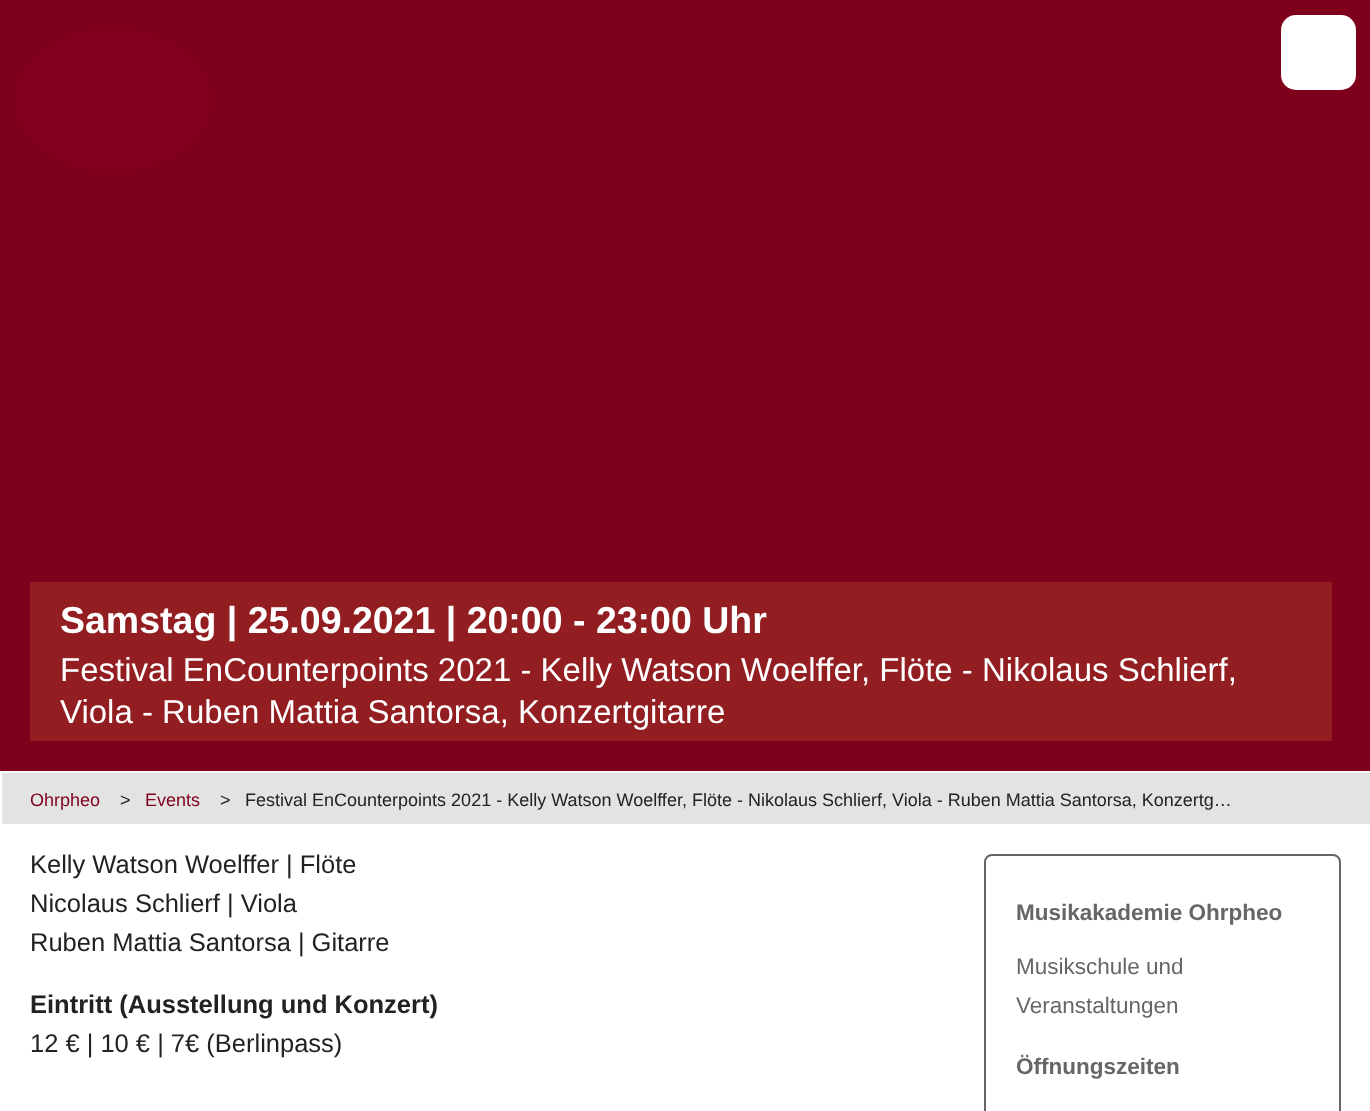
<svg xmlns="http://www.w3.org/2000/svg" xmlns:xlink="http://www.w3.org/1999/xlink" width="1370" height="1111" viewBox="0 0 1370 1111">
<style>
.cls-1{font:bold 37.5px Liberation Sans;fill:#ffffff}
.cls-2{font:33px Liberation Sans;fill:#ffffff}
.cls-3{font:18px Liberation Sans;fill:#7f001b}
.cls-4{font:18px Liberation Sans;fill:#222222}
.cls-5{font:25.5px Liberation Sans;fill:#222222}
.cls-6{font:bold 25.5px Liberation Sans;fill:#222222}
.cls-7{font:bold 22.5px Liberation Sans;fill:#666666}
.cls-8{font:22.5px Liberation Sans;fill:#666666}
</style>
<rect width="100%" height="100%" fill="#ffffff"/>
<rect fill="#7f001b" x="0" y="0" width="1370" height="771"/>
<ellipse fill="#82001c" cx="112.5" cy="100" rx="97.5" ry="71"/>
<rect fill="#ffffff" x="1281" y="15" width="75" height="75" rx="15"/>
<rect fill="#931e22" x="30" y="582" width="1302" height="159"/>
<rect fill="#e3e3e3" x="2" y="773" width="1368" height="51"/>
<rect fill="none" stroke="#666666" stroke-width="2" x="985" y="855" width="355" height="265" rx="7"/>
<text class="cls-1" x="60" y="633">Samstag | 25.09.2021 | 20:00 - 23:00 Uhr</text>
<text class="cls-2"><tspan x="60" y="681">Festival EnCounterpoints 2021 - Kelly Watson Woelffer, Flöte - Nikolaus Schlierf,</tspan><tspan x="60" y="723">Viola - Ruben Mattia Santorsa, Konzertgitarre</tspan></text>
<text class="cls-3" x="30" y="806">Ohrpheo</text>
<text class="cls-4" x="120" y="806">&gt;</text>
<text class="cls-3" x="145" y="806">Events</text>
<text class="cls-4" x="220" y="806">&gt;</text>
<text class="cls-4" x="245" y="806">Festival EnCounterpoints 2021 - Kelly Watson Woelffer, Flöte - Nikolaus Schlierf, Viola - Ruben Mattia Santorsa, Konzertg…</text>
<text class="cls-5"><tspan x="30" y="873">Kelly Watson Woelffer | Flöte</tspan><tspan x="30" y="912">Nicolaus Schlierf | Viola</tspan><tspan x="30" y="951">Ruben Mattia Santorsa | Gitarre</tspan></text>
<text class="cls-6" x="30" y="1013">Eintritt (Ausstellung und Konzert)</text>
<text class="cls-5" x="30" y="1052">12 € | 10 € | 7€ (Berlinpass)</text>
<text class="cls-7" x="1016" y="920">Musikakademie Ohrpheo</text>
<text class="cls-8"><tspan x="1016" y="974">Musikschule und</tspan><tspan x="1016" y="1013">Veranstaltungen</tspan></text>
<text class="cls-7" x="1016" y="1074">Öffnungszeiten</text>
</svg>
